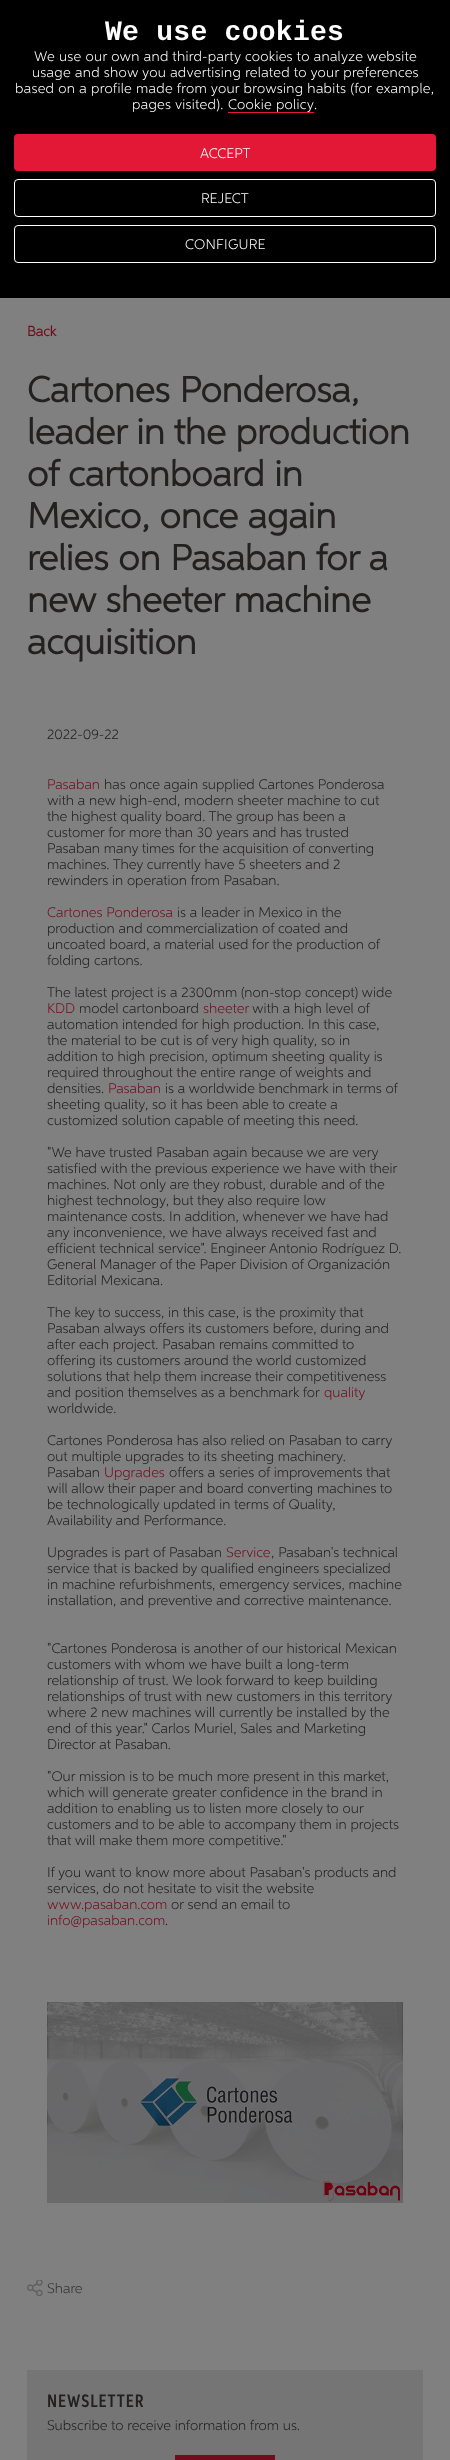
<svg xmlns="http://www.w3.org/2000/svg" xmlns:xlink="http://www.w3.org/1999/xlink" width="450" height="2460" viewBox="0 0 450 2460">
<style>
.cls-1{font:bold 28px Liberation Mono;letter-spacing:0.28px;fill:#ffffff}
.cls-2{font:300 14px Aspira;letter-spacing:0.28px;fill:#ffffff}
.cls-3{font:300 14px Aspira;fill:#ffffff}
.cls-4{font:bold 14px Aspira;fill:#720c1c}
.cls-5{font:bold 36px Aspira;fill:#232020}
.cls-6{font:300 14px Aspira;fill:#232020}
.cls-7{font:300 14px Aspira;fill:#720c1c}
.cls-8{font:300 14px Aspira;fill:#333333}
.cls-9{font:600 18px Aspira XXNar;letter-spacing:1px;fill:#232020}
</style>
<rect width="100%" height="100%" fill="#808080"/>
<rect fill="#000000" x="0" y="0" width="450" height="298"/>
<rect fill="#e31837" x="228" y="112" width="86" height="1"/>
<rect fill="#e31837" x="14" y="134" width="422" height="37" rx="4"/>
<rect fill="none" stroke="#ffffff" x="14.5" y="179.5" width="421" height="37" rx="3.5"/>
<rect fill="none" stroke="#ffffff" x="14.5" y="225.5" width="421" height="37" rx="3.5"/>
<image xlink:href="image0.png" x="47" y="2002" width="356" height="201"/>
<image xlink:href="image1.png" x="27" y="2280" width="16" height="16"/>
<rect fill="#757575" x="27" y="2370" width="396" height="90"/>
<rect fill="#720c1c" x="175" y="2455" width="100" height="5"/>
<text class="cls-1" x="105" y="40">We use cookies</text>
<text class="cls-2" x="34" y="61">We use our own and third-party cookies to analyze website</text>
<text class="cls-2" x="32" y="77">usage and show you advertising related to your preferences</text>
<text class="cls-2" x="15" y="93">based on a profile made from your browsing habits (for example,</text>
<text class="cls-2" x="132" y="109">pages visited).</text>
<text class="cls-2" x="228" y="109">Cookie policy</text>
<text class="cls-2" x="314" y="109">.</text>
<text class="cls-3" x="200" y="158">ACCEPT</text>
<text class="cls-3" x="201" y="203">REJECT</text>
<text class="cls-2" x="185" y="249">CONFIGURE</text>
<text class="cls-4" x="27" y="336">Back</text>
<text class="cls-5"><tspan x="27" y="402">Cartones Ponderosa,</tspan><tspan x="27" y="444">leader in the production</tspan><tspan x="27" y="486">of cartonboard in</tspan><tspan x="27" y="528">Mexico, once again</tspan><tspan x="27" y="570">relies on Pasaban for a</tspan><tspan x="27" y="612">new sheeter machine</tspan><tspan x="27" y="654">acquisition</tspan></text>
<text class="cls-6" x="47" y="739">2022-09-22</text>
<text class="cls-7" x="47" y="789">Pasaban</text>
<text class="cls-6" x="104" y="789">has once again supplied Cartones Ponderosa</text>
<text class="cls-6"><tspan x="47" y="805">with a new high-end, modern sheeter machine to cut</tspan><tspan x="47" y="821">the highest quality board. The group has been a</tspan><tspan x="47" y="837">customer for more than 30 years and has trusted</tspan><tspan x="47" y="853">Pasaban many times for the acquisition of converting</tspan><tspan x="47" y="869">machines. They currently have 5 sheeters and 2</tspan><tspan x="47" y="885">rewinders in operation from Pasaban.</tspan></text>
<text class="cls-7" x="47" y="917">Cartones Ponderosa</text>
<text class="cls-6" x="177" y="917">is a leader in Mexico in the</text>
<text class="cls-6"><tspan x="47" y="933">production and commercialization of coated and</tspan><tspan x="47" y="949">uncoated board, a material used for the production of</tspan><tspan x="47" y="965">folding cartons.</tspan></text>
<text class="cls-6" x="47" y="997">The latest project is a 2300mm (non-stop concept) wide</text>
<text class="cls-7" x="47" y="1013">KDD</text>
<text class="cls-6" x="79" y="1013">model cartonboard</text>
<text class="cls-7" x="203" y="1013">sheeter</text>
<text class="cls-6" x="252" y="1013">with a high level of</text>
<text class="cls-6"><tspan x="47" y="1029">automation intended for high production. In this case,</tspan><tspan x="47" y="1045">the material to be cut is of very high quality, so in</tspan><tspan x="47" y="1061">addition to high precision, optimum sheeting quality is</tspan><tspan x="47" y="1077">required throughout the entire range of weights and</tspan><tspan x="47" y="1093">densities.</tspan></text>
<text class="cls-7" x="108" y="1093">Pasaban</text>
<text class="cls-6" x="165" y="1093">is a worldwide benchmark in terms of</text>
<text class="cls-6"><tspan x="47" y="1109">sheeting quality, so it has been able to create a</tspan><tspan x="47" y="1125">customized solution capable of meeting this need.</tspan></text>
<text class="cls-6"><tspan x="47" y="1157">"We have trusted Pasaban again because we are very</tspan><tspan x="47" y="1173">satisfied with the previous experience we have with their</tspan><tspan x="47" y="1189">machines. Not only are they robust, durable and of the</tspan><tspan x="47" y="1205">highest technology, but they also require low</tspan><tspan x="47" y="1221">maintenance costs. In addition, whenever we have had</tspan><tspan x="47" y="1237">any inconvenience, we have always received fast and</tspan><tspan x="47" y="1253">efficient technical service". Engineer Antonio Rodríguez D.</tspan><tspan x="47" y="1269">General Manager of the Paper Division of Organización</tspan><tspan x="47" y="1285">Editorial Mexicana.</tspan></text>
<text class="cls-6"><tspan x="47" y="1317">The key to success, in this case, is the proximity that</tspan><tspan x="47" y="1333">Pasaban always offers its customers before, during and</tspan><tspan x="47" y="1349">after each project. Pasaban remains committed to</tspan><tspan x="47" y="1365">offering its customers around the world customized</tspan><tspan x="47" y="1381">solutions that help them increase their competitiveness</tspan><tspan x="47" y="1397">and position themselves as a benchmark for</tspan></text>
<text class="cls-7" x="324" y="1397">quality</text>
<text class="cls-6" x="47" y="1413">worldwide.</text>
<text class="cls-6"><tspan x="47" y="1445">Cartones Ponderosa has also relied on Pasaban to carry</tspan><tspan x="47" y="1461">out multiple upgrades to its sheeting machinery.</tspan><tspan x="47" y="1477">Pasaban</tspan></text>
<text class="cls-7" x="104" y="1477">Upgrades</text>
<text class="cls-6" x="169" y="1477">offers a series of improvements that</text>
<text class="cls-6"><tspan x="47" y="1493">will allow their paper and board converting machines to</tspan><tspan x="47" y="1509">be technologically updated in terms of Quality,</tspan><tspan x="47" y="1525">Availability and Performance.</tspan></text>
<text class="cls-6" x="47" y="1557">Upgrades is part of Pasaban</text>
<text class="cls-7" x="226" y="1557">Service</text>
<text class="cls-6" x="271" y="1557">, Pasaban's technical</text>
<text class="cls-6"><tspan x="47" y="1573">service that is backed by qualified engineers specialized</tspan><tspan x="47" y="1589">in machine refurbishments, emergency services, machine</tspan><tspan x="47" y="1605">installation, and preventive and corrective maintenance.</tspan></text>
<text class="cls-6"><tspan x="47" y="1653">"Cartones Ponderosa is another of our historical Mexican</tspan><tspan x="47" y="1669">customers with whom we have built a long-term</tspan><tspan x="47" y="1685">relationship of trust. We look forward to keep building</tspan><tspan x="47" y="1701">relationships of trust with new customers in this territory</tspan><tspan x="47" y="1717">where 2 new machines will currently be installed by the</tspan><tspan x="47" y="1733">end of this year." Carlos Muriel, Sales and Marketing</tspan><tspan x="47" y="1749">Director at Pasaban.</tspan></text>
<text class="cls-6"><tspan x="47" y="1781">"Our mission is to be much more present in this market,</tspan><tspan x="47" y="1797">which will generate greater confidence in the brand in</tspan><tspan x="47" y="1813">addition to enabling us to listen more closely to our</tspan><tspan x="47" y="1829">customers and to be able to accompany them in projects</tspan><tspan x="47" y="1845">that will make them more competitive."</tspan></text>
<text class="cls-6"><tspan x="47" y="1877">If you want to know more about Pasaban's products and</tspan><tspan x="47" y="1893">services, do not hesitate to visit the website</tspan></text>
<text class="cls-7" x="47" y="1909">www.pasaban.com</text>
<text class="cls-6" x="171" y="1909">or send an email to</text>
<text class="cls-7" x="47" y="1925">info@pasaban.com</text>
<text class="cls-6" x="165" y="1925">.</text>
<text class="cls-8" x="47" y="2293">Share</text>
<text class="cls-9" x="47" y="2407">NEWSLETTER</text>
<text class="cls-6" x="47" y="2430">Subscribe to receive information from us.</text>
</svg>
